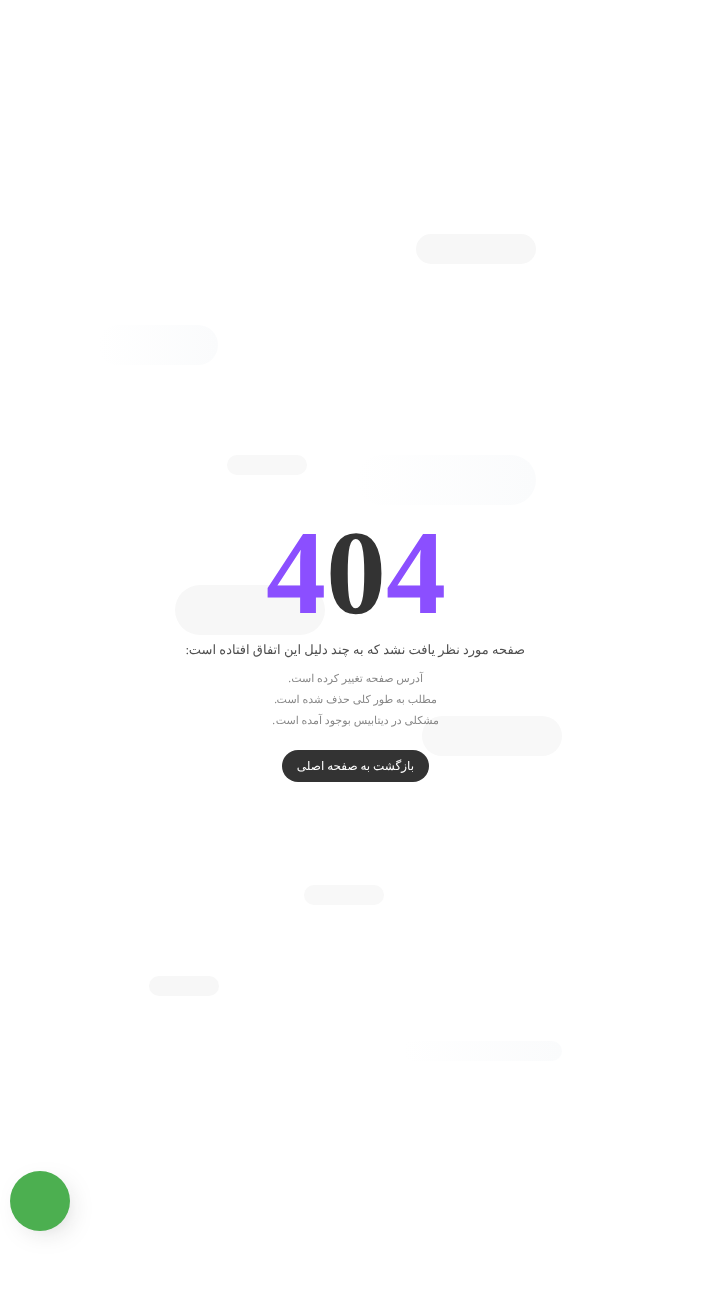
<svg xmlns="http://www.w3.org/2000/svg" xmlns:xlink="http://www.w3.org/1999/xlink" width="711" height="1301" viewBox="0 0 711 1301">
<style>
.cls-1{font:bold 120px Liberation Serif;fill:#8b4fff}
.cls-2{font:bold 120px Liberation Serif;fill:#333333}
.cls-3{font:13px DejaVu Sans;direction:rtl;fill:#505050}
.cls-4{font:13px Liberation Serif;direction:rtl;fill:#505050}
.cls-5{font:11px DejaVu Sans;direction:rtl;fill:#888888}
.cls-6{font:11px Liberation Serif;direction:rtl;fill:#888888}
.cls-7{font:12px DejaVu Sans;direction:rtl;fill:#ffffff}
</style>
<defs>
<linearGradient id="g1" gradientUnits="userSpaceOnUse" x1="98" y1="345" x2="218" y2="345"><stop offset="0" stop-color="#ffffff"/><stop offset="1" stop-color="#fafbfc"/></linearGradient>
<linearGradient id="g2" gradientUnits="userSpaceOnUse" x1="356" y1="480" x2="536" y2="480"><stop offset="0" stop-color="#ffffff"/><stop offset="1" stop-color="#fafbfc"/></linearGradient>
<linearGradient id="g3" gradientUnits="userSpaceOnUse" x1="402" y1="1051" x2="562" y2="1051"><stop offset="0" stop-color="#ffffff"/><stop offset="1" stop-color="#fafbfc"/></linearGradient>
</defs>
<rect width="100%" height="100%" fill="#ffffff"/>
<rect fill="#f7f7f7" x="416" y="234" width="120" height="30" rx="15"/>
<rect fill="#f7f7f7" x="175" y="585" width="150" height="50" rx="25"/>
<rect fill="#f7f7f7" x="149" y="976" width="70" height="20" rx="10"/>
<rect fill="url(#g1)" x="98" y="325" width="120" height="40" rx="20"/>
<rect fill="url(#g2)" x="356" y="455" width="180" height="50" rx="25"/>
<rect fill="url(#g3)" x="402" y="1041" width="160" height="20" rx="10"/>
<rect fill="#f8f8f8" x="227" y="455" width="80" height="20" rx="10"/>
<rect fill="#f8f8f8" x="422" y="716" width="140" height="40" rx="20"/>
<rect fill="#f8f8f8" x="304" y="885" width="80" height="20" rx="10"/>
<rect fill="#333333" x="282" y="750" width="147" height="32" rx="16"/>
<rect fill="#101010" fill-opacity="0.3" filter="blur(14px)" x="28" y="1190" width="36" height="36" rx="18"/>
<circle fill="#4caf50" cx="40" cy="1201" r="30"/>
<text class="cls-1" x="386" y="613">4</text>
<text class="cls-2" x="326" y="613">0</text>
<text class="cls-1" x="266" y="613">4</text>
<text class="cls-3" x="525" y="654" word-spacing="-0.9">صفحه مورد نظر یافت نشد که به چند دلیل این اتفاق افتاده است</text>
<text class="cls-4" x="189" y="654">:</text>
<text class="cls-5" x="423" y="682" word-spacing="-0.75">آدرس صفحه تغییر کرده است</text>
<text class="cls-6" x="291" y="682">.</text>
<text class="cls-5" x="437" y="703" word-spacing="-0.75">مطلب به طور کلی حذف شده است</text>
<text class="cls-6" x="277" y="703">.</text>
<text class="cls-5" x="439" y="724" word-spacing="-0.75">مشکلی در دیتابیس بوجود آمده است</text>
<text class="cls-6" x="275" y="724">.</text>
<text class="cls-7" x="414" y="770" word-spacing="-1">بازگشت به صفحه اصلی</text>
</svg>
